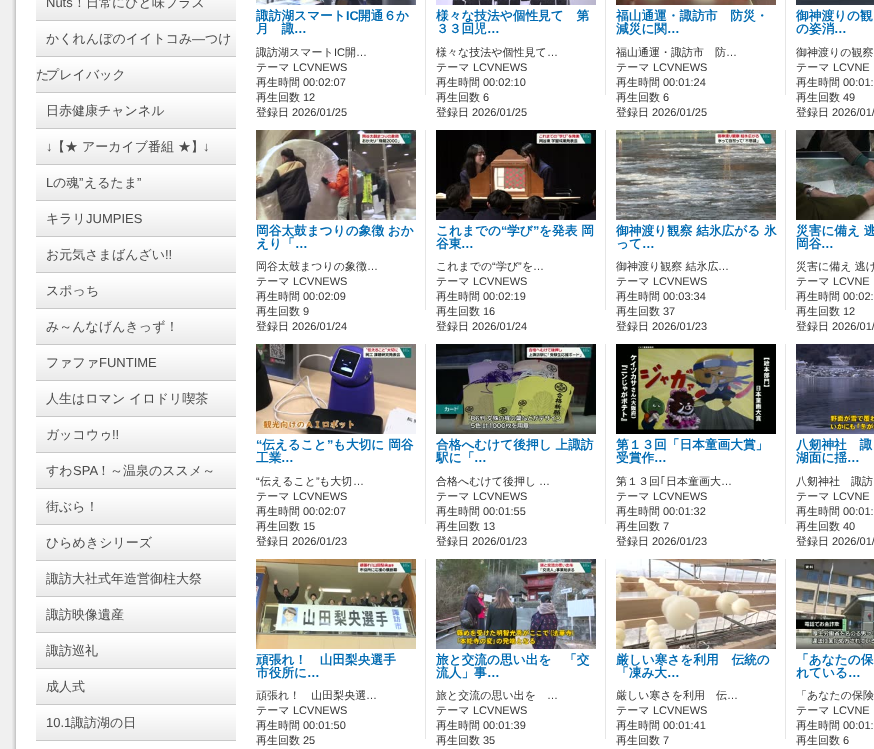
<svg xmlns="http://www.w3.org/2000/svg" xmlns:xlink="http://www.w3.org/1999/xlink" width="874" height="749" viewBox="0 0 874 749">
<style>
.cls-1{font:13px Liberation Sans;fill:#4b4b4b}
.cls-2{font:500 13px WenQuanYi Zen Hei;fill:#4b4b4b}
.cls-3{font:bold 12.7px WenQuanYi Zen Hei;fill:#006bb2}
.cls-4{font:bold 12.7px Liberation Sans;fill:#006bb2}
.cls-5{font:500 11px WenQuanYi Zen Hei;fill:#333333}
.cls-6{font:11px Liberation Sans;fill:#333333}
.cls-7{font:11px IPAPGothic;fill:#333333}
</style>
<rect width="100%" height="100%" fill="#f0f0f0"/>
<image xlink:href="image0.png" x="12" y="0" width="862" height="749"/>
<rect fill="#c8c8c8" x="36" y="20" width="200" height="721"/>
<image xlink:href="image1.png" x="36" y="0" width="200" height="20"/>
<image xlink:href="image2.png" x="36" y="21" width="200" height="35"/>
<image xlink:href="image2.png" x="36" y="57" width="200" height="35"/>
<image xlink:href="image2.png" x="36" y="93" width="200" height="35"/>
<image xlink:href="image2.png" x="36" y="129" width="200" height="35"/>
<image xlink:href="image2.png" x="36" y="165" width="200" height="35"/>
<image xlink:href="image2.png" x="36" y="201" width="200" height="35"/>
<image xlink:href="image2.png" x="36" y="237" width="200" height="35"/>
<image xlink:href="image2.png" x="36" y="273" width="200" height="35"/>
<image xlink:href="image2.png" x="36" y="309" width="200" height="35"/>
<image xlink:href="image2.png" x="36" y="345" width="200" height="35"/>
<image xlink:href="image2.png" x="36" y="381" width="200" height="35"/>
<image xlink:href="image2.png" x="36" y="417" width="200" height="35"/>
<image xlink:href="image2.png" x="36" y="453" width="200" height="35"/>
<image xlink:href="image2.png" x="36" y="489" width="200" height="35"/>
<image xlink:href="image2.png" x="36" y="525" width="200" height="35"/>
<image xlink:href="image2.png" x="36" y="561" width="200" height="35"/>
<image xlink:href="image2.png" x="36" y="597" width="200" height="35"/>
<image xlink:href="image2.png" x="36" y="633" width="200" height="35"/>
<image xlink:href="image2.png" x="36" y="669" width="200" height="35"/>
<image xlink:href="image2.png" x="36" y="705" width="200" height="35"/>
<image xlink:href="image3.png" x="256" y="0" width="160" height="5"/>
<rect fill="#e6e6e6" x="425" y="0" width="1" height="95"/>
<image xlink:href="image4.png" x="436" y="0" width="160" height="5"/>
<rect fill="#e6e6e6" x="605" y="0" width="1" height="95"/>
<image xlink:href="image5.png" x="616" y="0" width="160" height="5"/>
<rect fill="#e6e6e6" x="785" y="0" width="1" height="95"/>
<image xlink:href="image6.png" x="796" y="0" width="78" height="5"/>
<image xlink:href="image7.png" x="256" y="130" width="160" height="90"/>
<rect fill="#e6e6e6" x="425" y="130" width="1" height="180"/>
<image xlink:href="image8.png" x="436" y="130" width="160" height="90"/>
<rect fill="#e6e6e6" x="605" y="130" width="1" height="180"/>
<image xlink:href="image9.png" x="616" y="130" width="160" height="90"/>
<rect fill="#e6e6e6" x="785" y="130" width="1" height="180"/>
<image xlink:href="image10.png" x="796" y="130" width="78" height="90"/>
<image xlink:href="image11.png" x="256" y="344" width="160" height="90"/>
<rect fill="#e6e6e6" x="425" y="344" width="1" height="180"/>
<image xlink:href="image12.png" x="436" y="344" width="160" height="90"/>
<rect fill="#e6e6e6" x="605" y="344" width="1" height="180"/>
<image xlink:href="image13.png" x="616" y="344" width="160" height="90"/>
<rect fill="#e6e6e6" x="785" y="344" width="1" height="180"/>
<image xlink:href="image14.png" x="796" y="344" width="78" height="90"/>
<image xlink:href="image15.png" x="256" y="559" width="160" height="90"/>
<rect fill="#e6e6e6" x="425" y="559" width="1" height="180"/>
<image xlink:href="image16.png" x="436" y="559" width="160" height="90"/>
<rect fill="#e6e6e6" x="605" y="559" width="1" height="180"/>
<image xlink:href="image17.png" x="616" y="559" width="160" height="90"/>
<rect fill="#e6e6e6" x="785" y="559" width="1" height="180"/>
<image xlink:href="image18.png" x="796" y="559" width="78" height="90"/>
<text class="cls-1" x="46" y="7">Nuts</text>
<text class="cls-2" x="73" y="7">！日常にひと味プラス</text>
<text class="cls-2" x="46" y="43">かくれんぼのイイトコみ</text>
<text class="cls-1" x="192" y="43">―</text>
<text class="cls-2" x="205" y="43">つけ</text>
<text class="cls-2" x="36" y="79">た</text>
<text class="cls-2" x="46" y="79">プレイバック</text>
<text class="cls-2" x="46" y="115">日赤健康チャンネル</text>
<text class="cls-1" x="46" y="151">↓</text>
<text class="cls-2" x="52" y="151">【★ アーカイブ番組 ★】</text>
<text class="cls-1" x="203" y="151">↓</text>
<text class="cls-1" x="46" y="187">L</text>
<text class="cls-2" x="53" y="187">の魂</text>
<text class="cls-1" x="79" y="187">”</text>
<text class="cls-2" x="84" y="187">えるたま</text>
<text class="cls-1" x="137" y="187">”</text>
<text class="cls-2" x="46" y="223">キラリ</text>
<text class="cls-1" x="86" y="223">JUMPIES</text>
<text class="cls-2" x="46" y="259">お元気さまばんざい</text>
<text class="cls-1" x="165" y="259">!!</text>
<text class="cls-2" x="46" y="295">スポっち</text>
<text class="cls-2" x="46" y="331">み～んなげんきっず！</text>
<text class="cls-2" x="46" y="367">ファファ</text>
<text class="cls-1" x="99" y="367">FUNTIME</text>
<text class="cls-2" x="46" y="403">人生はロマン イロドリ喫茶</text>
<text class="cls-2" x="46" y="439">ガッコウゥ</text>
<text class="cls-1" x="112" y="439">!!</text>
<text class="cls-2" x="46" y="475">すわ</text>
<text class="cls-1" x="73" y="475">SPA</text>
<text class="cls-2" x="97" y="475">！～温泉のススメ～</text>
<text class="cls-2" x="46" y="511">街ぶら！</text>
<text class="cls-2" x="46" y="547">ひらめきシリーズ</text>
<text class="cls-2" x="46" y="583">諏訪大社式年造営御柱大祭</text>
<text class="cls-2" x="46" y="619">諏訪映像遺産</text>
<text class="cls-2" x="46" y="655">諏訪巡礼</text>
<text class="cls-2" x="46" y="691">成人式</text>
<text class="cls-1" x="46" y="727">10.1</text>
<text class="cls-2" x="71" y="727">諏訪湖の日</text>
<text class="cls-3" x="256" y="20">諏訪湖スマート</text>
<text class="cls-4" x="346" y="20">IC</text>
<text class="cls-3" x="358" y="20">開通６か</text>
<text class="cls-3" x="256" y="33">月　諏</text>
<text class="cls-4" x="294" y="33">…</text>
<text class="cls-5" x="256" y="56">諏訪湖スマート</text>
<text class="cls-6" x="334" y="56">IC</text>
<text class="cls-5" x="345" y="56">開</text>
<text class="cls-6" x="356" y="56">…</text>
<text class="cls-5" x="256" y="71">テーマ</text>
<text class="cls-6" x="293" y="71">LCVNEWS</text>
<text class="cls-5" x="256" y="86">再生時間</text>
<text class="cls-6" x="303" y="86">00:02:07</text>
<text class="cls-5" x="256" y="101">再生回数</text>
<text class="cls-6" x="303" y="101">12</text>
<text class="cls-5" x="256" y="116">登録日</text>
<text class="cls-6" x="292" y="116">2026/01/25</text>
<text class="cls-3"><tspan x="436" y="20">様々な技法や個性見て　第</tspan><tspan x="436" y="33">３３回児</tspan></text>
<text class="cls-4" x="487" y="33">…</text>
<text class="cls-5" x="436" y="56">様々な技法や個性見て</text>
<text class="cls-6" x="547" y="56">…</text>
<text class="cls-5" x="436" y="71">テーマ</text>
<text class="cls-6" x="473" y="71">LCVNEWS</text>
<text class="cls-5" x="436" y="86">再生時間</text>
<text class="cls-6" x="483" y="86">00:02:10</text>
<text class="cls-5" x="436" y="101">再生回数</text>
<text class="cls-6" x="483" y="101">6</text>
<text class="cls-5" x="436" y="116">登録日</text>
<text class="cls-6" x="472" y="116">2026/01/25</text>
<text class="cls-3"><tspan x="616" y="20">福山通運・諏訪市　防災・</tspan><tspan x="616" y="33">減災に関</tspan></text>
<text class="cls-4" x="667" y="33">…</text>
<text class="cls-5" x="616" y="56">福山通運・諏訪市　防</text>
<text class="cls-6" x="726" y="56">…</text>
<text class="cls-5" x="616" y="71">テーマ</text>
<text class="cls-6" x="653" y="71">LCVNEWS</text>
<text class="cls-5" x="616" y="86">再生時間</text>
<text class="cls-6" x="663" y="86">00:01:24</text>
<text class="cls-5" x="616" y="101">再生回数</text>
<text class="cls-6" x="663" y="101">6</text>
<text class="cls-5" x="616" y="116">登録日</text>
<text class="cls-6" x="652" y="116">2026/01/25</text>
<text class="cls-3"><tspan x="796" y="20">御神渡りの観</tspan><tspan x="796" y="33">の姿消</tspan></text>
<text class="cls-4" x="834" y="33">…</text>
<text class="cls-5"><tspan x="796" y="56">御神渡りの観察</tspan><tspan x="796" y="71">テーマ</tspan></text>
<text class="cls-6" x="833" y="71">LCVNE</text>
<text class="cls-5" x="796" y="86">再生時間</text>
<text class="cls-6" x="843" y="86">00:01:</text>
<text class="cls-5" x="796" y="101">再生回数</text>
<text class="cls-6" x="843" y="101">49</text>
<text class="cls-5" x="796" y="116">登録日</text>
<text class="cls-6" x="832" y="116">2026/01/</text>
<text class="cls-3"><tspan x="256" y="235">岡谷太鼓まつりの象徴 おか</tspan><tspan x="256" y="248">えり「</tspan></text>
<text class="cls-4" x="295" y="248">…</text>
<text class="cls-5" x="256" y="270">岡谷太鼓まつりの象徴</text>
<text class="cls-6" x="367" y="270">…</text>
<text class="cls-5" x="256" y="285">テーマ</text>
<text class="cls-6" x="293" y="285">LCVNEWS</text>
<text class="cls-5" x="256" y="300">再生時間</text>
<text class="cls-6" x="303" y="300">00:02:09</text>
<text class="cls-5" x="256" y="315">再生回数</text>
<text class="cls-6" x="303" y="315">9</text>
<text class="cls-5" x="256" y="330">登録日</text>
<text class="cls-6" x="292" y="330">2026/01/24</text>
<text class="cls-3" x="436" y="235">これまでの</text>
<text class="cls-4" x="501" y="235">“</text>
<text class="cls-3" x="507" y="235">学び</text>
<text class="cls-4" x="533" y="235">”</text>
<text class="cls-3" x="539" y="235">を発表 岡</text>
<text class="cls-3" x="436" y="248">谷東</text>
<text class="cls-4" x="461" y="248">…</text>
<text class="cls-5" x="436" y="270">これまでの</text>
<text class="cls-6" x="492" y="270">“</text>
<text class="cls-5" x="496" y="270">学び</text>
<text class="cls-6" x="518" y="270">”</text>
<text class="cls-5" x="522" y="270">を</text>
<text class="cls-6" x="533" y="270">…</text>
<text class="cls-5" x="436" y="285">テーマ</text>
<text class="cls-6" x="473" y="285">LCVNEWS</text>
<text class="cls-5" x="436" y="300">再生時間</text>
<text class="cls-6" x="483" y="300">00:02:19</text>
<text class="cls-5" x="436" y="315">再生回数</text>
<text class="cls-6" x="483" y="315">16</text>
<text class="cls-5" x="436" y="330">登録日</text>
<text class="cls-6" x="472" y="330">2026/01/24</text>
<text class="cls-3"><tspan x="616" y="235">御神渡り観察 結氷広がる 氷</tspan><tspan x="616" y="248">って</tspan></text>
<text class="cls-4" x="642" y="248">…</text>
<text class="cls-5" x="616" y="270">御神渡り観察 結氷広</text>
<text class="cls-6" x="718" y="270">…</text>
<text class="cls-5" x="616" y="285">テーマ</text>
<text class="cls-6" x="653" y="285">LCVNEWS</text>
<text class="cls-5" x="616" y="300">再生時間</text>
<text class="cls-6" x="663" y="300">00:03:34</text>
<text class="cls-5" x="616" y="315">再生回数</text>
<text class="cls-6" x="663" y="315">37</text>
<text class="cls-5" x="616" y="330">登録日</text>
<text class="cls-6" x="652" y="330">2026/01/23</text>
<text class="cls-3"><tspan x="796" y="235">災害に備え 逃</tspan><tspan x="796" y="248">岡谷</tspan></text>
<text class="cls-4" x="821" y="248">…</text>
<text class="cls-5"><tspan x="796" y="270">災害に備え 逃げ</tspan><tspan x="796" y="285">テーマ</tspan></text>
<text class="cls-6" x="833" y="285">LCVNE</text>
<text class="cls-5" x="796" y="300">再生時間</text>
<text class="cls-6" x="843" y="300">00:02:</text>
<text class="cls-5" x="796" y="315">再生回数</text>
<text class="cls-6" x="843" y="315">12</text>
<text class="cls-5" x="796" y="330">登録日</text>
<text class="cls-6" x="832" y="330">2026/01/</text>
<text class="cls-4" x="256" y="449">“</text>
<text class="cls-3" x="262" y="449">伝えること</text>
<text class="cls-4" x="327" y="449">”</text>
<text class="cls-3" x="333" y="449">も大切に 岡谷</text>
<text class="cls-3" x="256" y="462">工業</text>
<text class="cls-4" x="281" y="462">…</text>
<text class="cls-6" x="256" y="485">“</text>
<text class="cls-5" x="260" y="485">伝えること</text>
<text class="cls-6" x="316" y="485">”</text>
<text class="cls-5" x="319" y="485">も大切</text>
<text class="cls-6" x="353" y="485">…</text>
<text class="cls-5" x="256" y="500">テーマ</text>
<text class="cls-6" x="293" y="500">LCVNEWS</text>
<text class="cls-5" x="256" y="515">再生時間</text>
<text class="cls-6" x="303" y="515">00:02:07</text>
<text class="cls-5" x="256" y="530">再生回数</text>
<text class="cls-6" x="303" y="530">15</text>
<text class="cls-5" x="256" y="545">登録日</text>
<text class="cls-6" x="292" y="545">2026/01/23</text>
<text class="cls-3"><tspan x="436" y="449">合格へむけて後押し 上諏訪</tspan><tspan x="436" y="462">駅に「</tspan></text>
<text class="cls-4" x="474" y="462">…</text>
<text class="cls-5" x="436" y="485">合格へむけて後押し</text>
<text class="cls-6" x="539" y="485">…</text>
<text class="cls-5" x="436" y="500">テーマ</text>
<text class="cls-6" x="473" y="500">LCVNEWS</text>
<text class="cls-5" x="436" y="515">再生時間</text>
<text class="cls-6" x="483" y="515">00:01:55</text>
<text class="cls-5" x="436" y="530">再生回数</text>
<text class="cls-6" x="483" y="530">13</text>
<text class="cls-5" x="436" y="545">登録日</text>
<text class="cls-6" x="472" y="545">2026/01/23</text>
<text class="cls-3"><tspan x="616" y="449">第１３回「日本童画大賞」</tspan><tspan x="616" y="462">受賞作</tspan></text>
<text class="cls-4" x="654" y="462">…</text>
<text class="cls-5" x="616" y="485">第１３回</text>
<text class="cls-7" x="660" y="485">｢</text>
<text class="cls-5" x="666" y="485">日本童画大</text>
<text class="cls-6" x="721" y="485">…</text>
<text class="cls-5" x="616" y="500">テーマ</text>
<text class="cls-6" x="653" y="500">LCVNEWS</text>
<text class="cls-5" x="616" y="515">再生時間</text>
<text class="cls-6" x="663" y="515">00:01:32</text>
<text class="cls-5" x="616" y="530">再生回数</text>
<text class="cls-6" x="663" y="530">7</text>
<text class="cls-5" x="616" y="545">登録日</text>
<text class="cls-6" x="652" y="545">2026/01/23</text>
<text class="cls-3"><tspan x="796" y="449">八剱神社　諏</tspan><tspan x="796" y="462">湖面に揺</tspan></text>
<text class="cls-4" x="847" y="462">…</text>
<text class="cls-5"><tspan x="796" y="485">八剱神社　諏訪</tspan><tspan x="796" y="500">テーマ</tspan></text>
<text class="cls-6" x="833" y="500">LCVNE</text>
<text class="cls-5" x="796" y="515">再生時間</text>
<text class="cls-6" x="843" y="515">00:01:</text>
<text class="cls-5" x="796" y="530">再生回数</text>
<text class="cls-6" x="843" y="530">40</text>
<text class="cls-5" x="796" y="545">登録日</text>
<text class="cls-6" x="832" y="545">2026/01/</text>
<text class="cls-3"><tspan x="256" y="664">頑張れ！　山田梨央選手</tspan><tspan x="256" y="677">市役所に</tspan></text>
<text class="cls-4" x="307" y="677">…</text>
<text class="cls-5" x="256" y="699">頑張れ！　山田梨央選</text>
<text class="cls-6" x="366" y="699">…</text>
<text class="cls-5" x="256" y="714">テーマ</text>
<text class="cls-6" x="293" y="714">LCVNEWS</text>
<text class="cls-5" x="256" y="729">再生時間</text>
<text class="cls-6" x="303" y="729">00:01:50</text>
<text class="cls-5" x="256" y="744">再生回数</text>
<text class="cls-6" x="303" y="744">25</text>
<text class="cls-3"><tspan x="436" y="664">旅と交流の思い出を　「交</tspan><tspan x="436" y="677">流人」事</tspan></text>
<text class="cls-4" x="487" y="677">…</text>
<text class="cls-5" x="436" y="699">旅と交流の思い出を</text>
<text class="cls-6" x="547" y="699">…</text>
<text class="cls-5" x="436" y="714">テーマ</text>
<text class="cls-6" x="473" y="714">LCVNEWS</text>
<text class="cls-5" x="436" y="729">再生時間</text>
<text class="cls-6" x="483" y="729">00:01:39</text>
<text class="cls-5" x="436" y="744">再生回数</text>
<text class="cls-6" x="483" y="744">35</text>
<text class="cls-3"><tspan x="616" y="664">厳しい寒さを利用　伝統の</tspan><tspan x="616" y="677">「凍み大</tspan></text>
<text class="cls-4" x="667" y="677">…</text>
<text class="cls-5" x="616" y="699">厳しい寒さを利用　伝</text>
<text class="cls-6" x="727" y="699">…</text>
<text class="cls-5" x="616" y="714">テーマ</text>
<text class="cls-6" x="653" y="714">LCVNEWS</text>
<text class="cls-5" x="616" y="729">再生時間</text>
<text class="cls-6" x="663" y="729">00:01:41</text>
<text class="cls-5" x="616" y="744">再生回数</text>
<text class="cls-6" x="663" y="744">7</text>
<text class="cls-3"><tspan x="796" y="664">「あなたの保</tspan><tspan x="796" y="677">れている</tspan></text>
<text class="cls-4" x="848" y="677">…</text>
<text class="cls-5"><tspan x="796" y="699">「あなたの保険</tspan><tspan x="796" y="714">テーマ</tspan></text>
<text class="cls-6" x="833" y="714">LCVNE</text>
<text class="cls-5" x="796" y="729">再生時間</text>
<text class="cls-6" x="843" y="729">00:01:</text>
<text class="cls-5" x="796" y="744">再生回数</text>
<text class="cls-6" x="843" y="744">6</text>
</svg>
